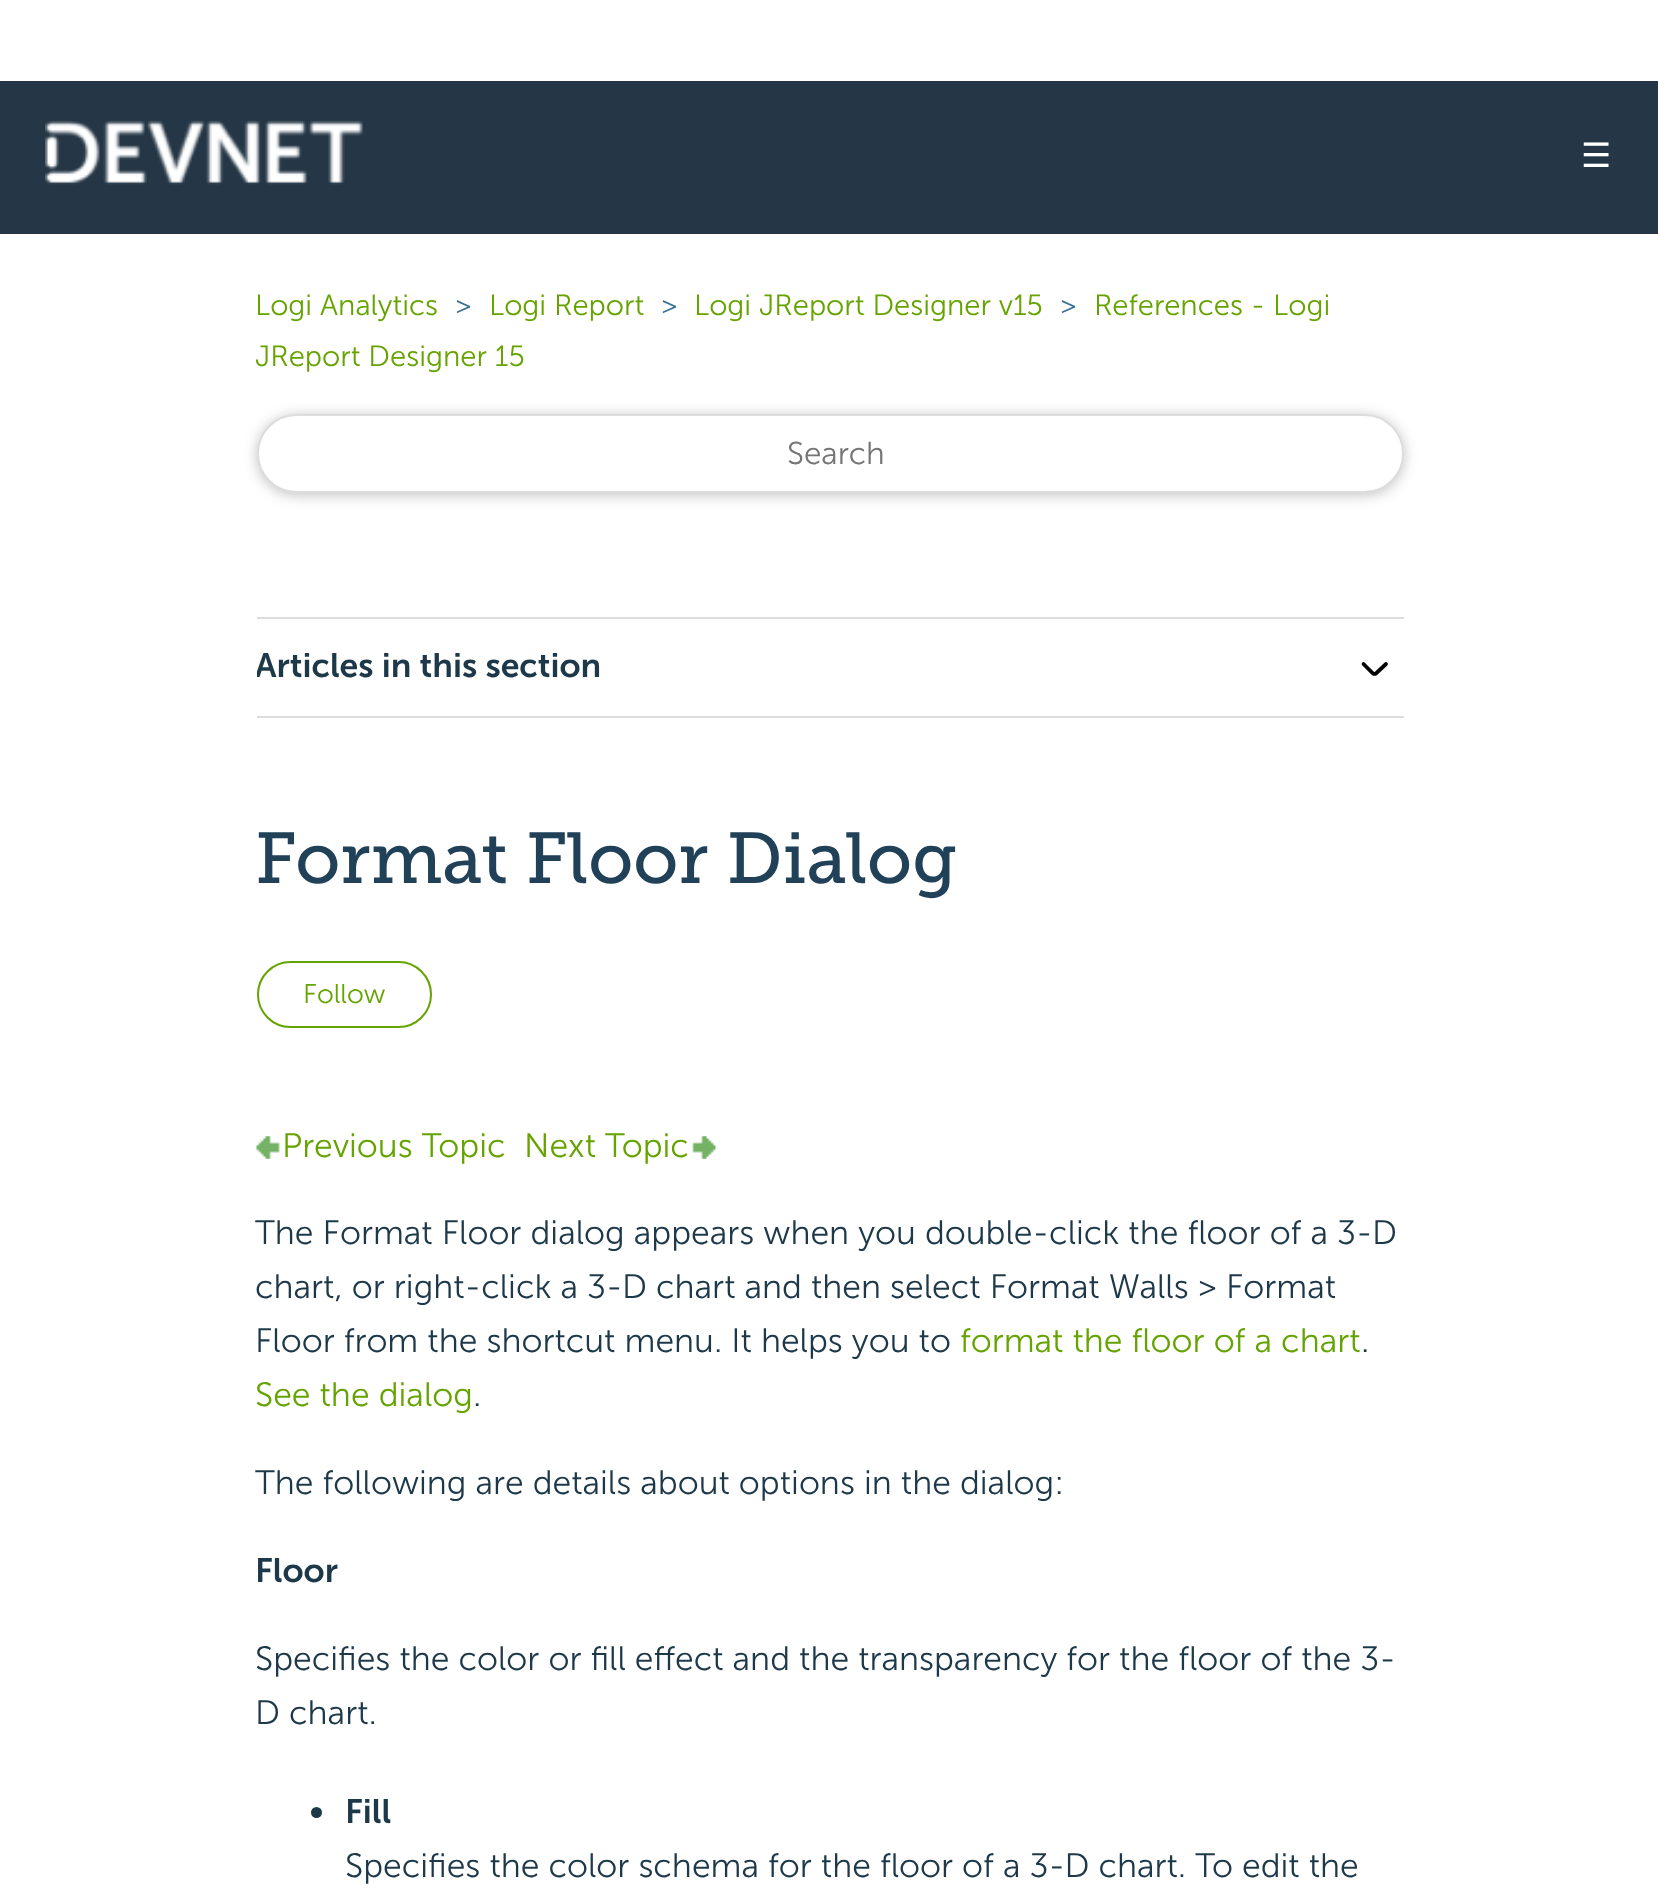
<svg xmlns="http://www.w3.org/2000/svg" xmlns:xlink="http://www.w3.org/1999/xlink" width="1658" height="1891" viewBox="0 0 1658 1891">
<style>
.cls-1{font:33.75px DejaVu Sans;fill:#ffffff}
.cls-2{font:300 29.25px Museo Sans;fill:#65a300}
.cls-3{font:300 29.25px Museo Sans;fill:#3a7092}
.cls-4{font:300 31.5px Museo Sans;fill:#757575}
.cls-5{font:600 33.75px Museo Sans;fill:#1d3849}
.cls-6{font:72px Museo Slab;fill:#204158}
.cls-7{font:300 27px Museo Sans;fill:#65a300}
.cls-8{font:300 33.75px Museo Sans;fill:#65a300}
.cls-9{font:300 33.75px Museo Sans;fill:#1d3849}
</style>
<defs>
<clipPath id="clip1"><rect x="257" y="619" width="1147" height="97"/></clipPath>
</defs>
<rect width="100%" height="100%" fill="#ffffff"/>
<rect fill="#253746" x="0" y="81" width="1658" height="153"/>
<image xlink:href="image0.png" x="45" y="120" width="318" height="65"/>
<rect fill="#202124" fill-opacity="0.28" filter="blur(7px)" x="257" y="416" width="1147" height="79" rx="39.5"/>
<rect fill="#ffffff" stroke="#dddddd" stroke-width="2" x="258" y="415" width="1145" height="77" rx="38.5"/>
<rect fill="#dddddd" x="257" y="617" width="1147" height="2"/>
<rect fill="#dddddd" x="257" y="716" width="1147" height="2"/>
<path fill="none" stroke="#000000" stroke-width="3.8" stroke-linecap="round" d="M1363.5 664L1373 673.5C1374 674 1375 674 1376 673.5L1386 664"/>
<rect fill="none" stroke="#65a300" stroke-width="2" x="258" y="962" width="173" height="65" rx="32.5"/>
<image xlink:href="image1.png" x="256" y="1136" width="24" height="23"/>
<image xlink:href="image2.png" x="692" y="1136" width="24" height="23"/>
<circle fill="#1d3849" cx="316.5" cy="1812.5" r="5.5"/>
<text class="cls-1" x="1581" y="167">☰</text>
<text class="cls-2" x="255" y="315">Logi Analytics</text>
<text class="cls-3" x="455" y="315">&gt;</text>
<text class="cls-2" x="489" y="315">Logi Report</text>
<text class="cls-3" x="661" y="315">&gt;</text>
<text class="cls-2" x="694" y="315">Logi JReport Designer v15</text>
<text class="cls-3" x="1060" y="315">&gt;</text>
<text class="cls-2" x="1094" y="315">References - Logi</text>
<text class="cls-2" x="255" y="366">JReport Designer 15</text>
<text class="cls-4" x="787" y="464">Search</text>
<g clip-path="url(#clip1)">
<text class="cls-5" x="255" y="677">Articles in this section</text>
</g>
<text class="cls-6" x="255" y="883">Format Floor Dialog</text>
<text class="cls-7" x="303" y="1003">Follow</text>
<text class="cls-8" x="282" y="1157">Previous Topic</text>
<text class="cls-8" x="524" y="1157">Next Topic</text>
<text class="cls-9"><tspan x="255" y="1244">The Format Floor dialog appears when you double-click the floor of a 3-D</tspan><tspan x="255" y="1298">chart, or right-click a 3-D chart and then select Format Walls &gt; Format</tspan><tspan x="255" y="1352">Floor from the shortcut menu. It helps you to</tspan></text>
<text class="cls-8" x="960" y="1352">format the floor of a chart</text>
<text class="cls-9" x="1361" y="1352">.</text>
<text class="cls-8" x="255" y="1406">See the dialog</text>
<text class="cls-9" x="473" y="1406">.</text>
<text class="cls-9" x="255" y="1494">The following are details about options in the dialog:</text>
<text class="cls-5" x="255" y="1582">Floor</text>
<text class="cls-9"><tspan x="255" y="1670">Specifies the color or fill effect and the transparency for the floor of the 3-</tspan><tspan x="255" y="1724">D chart.</tspan></text>
<text class="cls-5" x="345" y="1823">Fill</text>
<text class="cls-9" x="345" y="1877">Specifies the color schema for the floor of a 3-D chart. To edit the</text>
</svg>
